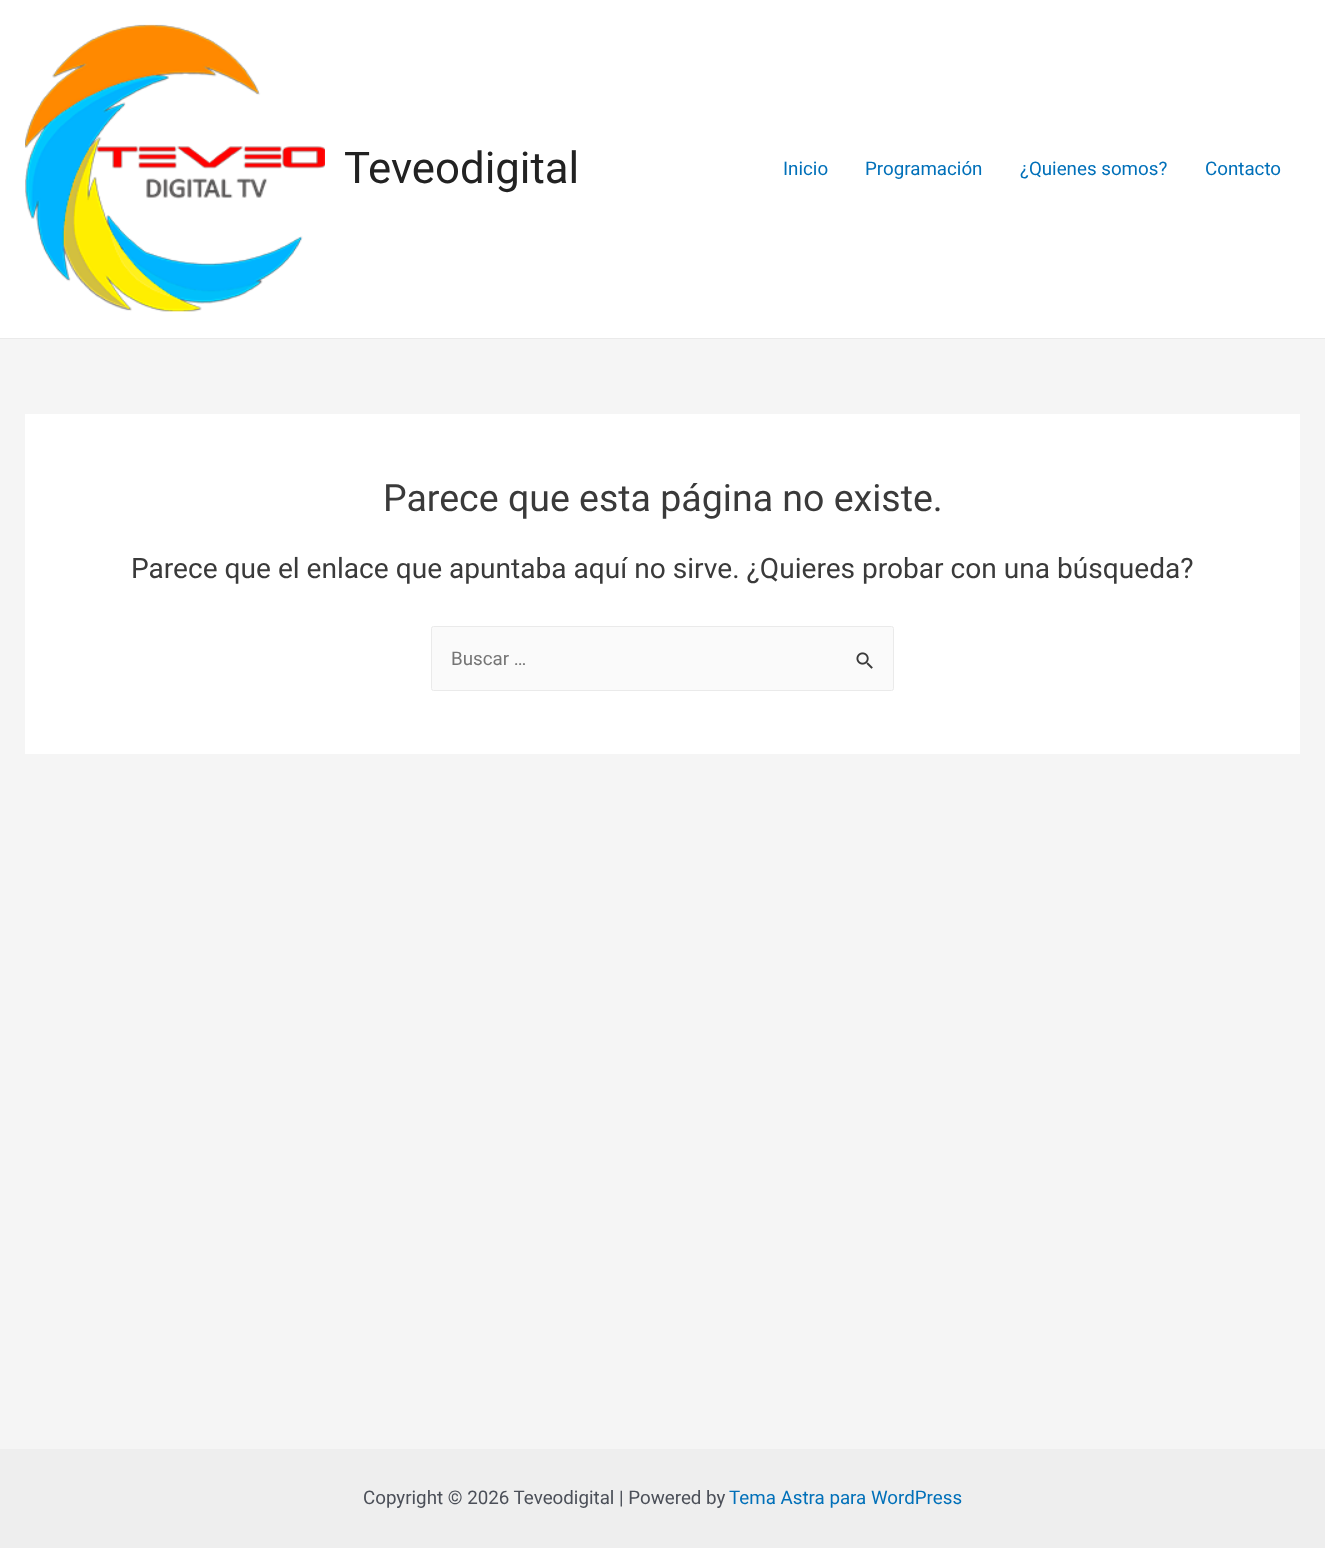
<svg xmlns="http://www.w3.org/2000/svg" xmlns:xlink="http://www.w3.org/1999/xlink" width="1325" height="1548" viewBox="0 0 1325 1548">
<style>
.cls-1{font:43.75px Roboto;fill:#222222}
.cls-2{font:18.75px Roboto;fill:#0170b9}
.cls-3{font:37.5px Roboto;fill:#3a3a3a}
.cls-4{font:28.1px Roboto;fill:#3a3a3a}
.cls-5{font:18.75px Roboto;fill:#757575}
.cls-6{font:18.75px Roboto;fill:#4b4f58}
</style>
<rect width="100%" height="100%" fill="#f5f5f5"/>
<rect fill="#ffffff" x="0" y="0" width="1325" height="338"/>
<rect fill="#eaeaea" x="0" y="338" width="1325" height="1"/>
<image xlink:href="image0.png" x="25" y="24" width="300" height="288"/>
<rect fill="#ffffff" x="25" y="414" width="1275" height="340"/>
<rect fill="#fafafa" stroke="#eaeaea" x="431.5" y="626.5" width="462" height="64" rx="2"/>
<image xlink:href="image1.png" x="856" y="652" width="17" height="17"/>
<rect fill="#eeeeee" x="0" y="1449" width="1325" height="99"/>
<text class="cls-1" x="344" y="183">Teveodigital</text>
<text class="cls-2" x="783" y="175">Inicio</text>
<text class="cls-2" x="865" y="175">Programación</text>
<text class="cls-2" x="1020" y="175">¿Quienes somos?</text>
<text class="cls-2" x="1205" y="175">Contacto</text>
<text class="cls-3" x="383" y="511">Parece que esta página no existe.</text>
<text class="cls-4" x="131" y="578">Parece que el enlace que apuntaba aquí no sirve. ¿Quieres probar con una búsqueda?</text>
<text class="cls-5" x="451" y="665">Buscar …</text>
<text class="cls-6" x="363" y="1504">Copyright © 2026 Teveodigital | Powered by</text>
<text class="cls-2" x="729" y="1504">Tema Astra para WordPress</text>
</svg>
